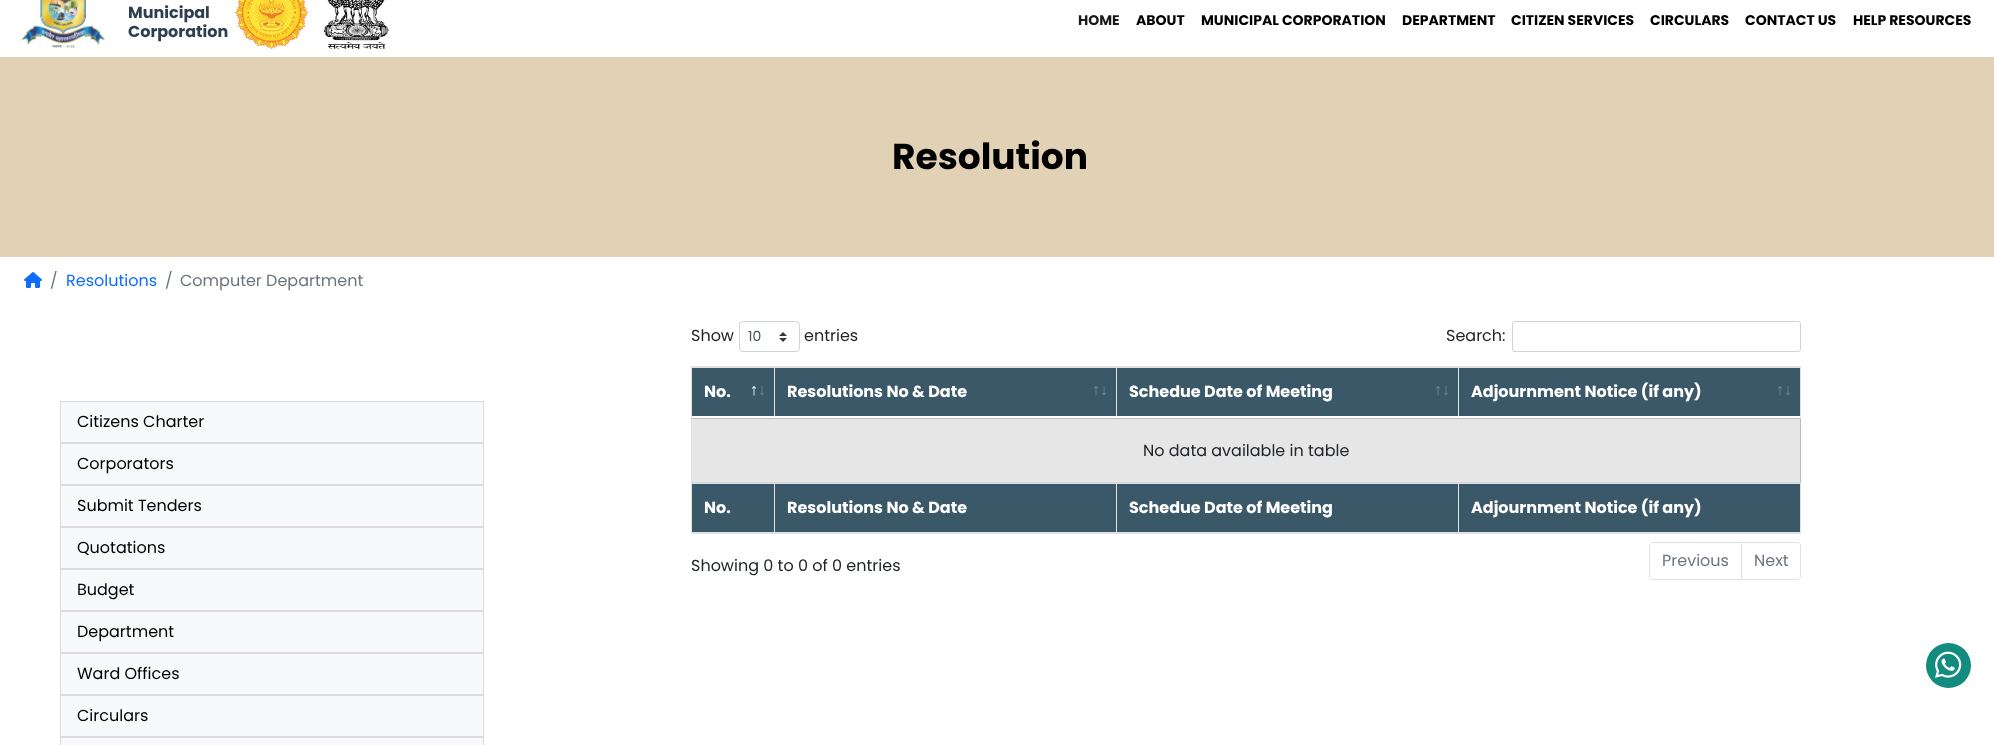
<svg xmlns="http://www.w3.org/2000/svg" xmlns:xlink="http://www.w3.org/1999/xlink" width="1994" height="745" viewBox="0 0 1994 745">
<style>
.cls-1{font:bold 16px Poppins;fill:#2c3e50}
.cls-2{font:bold 14px Poppins;fill:#1a1a1a}
.cls-3{font:bold 14px Poppins;fill:#000000}
.cls-4{font:bold 36px Poppins;fill:#000000}
.cls-5{font:16px Poppins;fill:#6c757d}
.cls-6{font:16px Poppins;fill:#0d6efd}
.cls-7{font:16px Poppins;fill:#000000}
.cls-8{font:16px Poppins;fill:#212529}
.cls-9{font:14px Poppins;fill:#495057}
.cls-10{font:bold 16px Poppins;fill:#ffffff}
.cls-11{font:bold 16px Liberation Sans;fill:#ffffff}
.cls-12{font:bold 16px Liberation Sans;fill:#768a95}
</style>
<rect width="100%" height="100%" fill="#ffffff"/>
<image xlink:href="image0.png" x="21" y="0" width="84" height="48"/>
<image xlink:href="image1.png" x="235" y="0" width="73" height="49"/>
<image xlink:href="image2.png" x="323" y="0" width="67" height="49"/>
<rect fill="#e1d2b5" x="0" y="57" width="1994" height="200"/>
<image xlink:href="image3.png" x="24" y="272" width="18" height="16"/>
<rect fill="#f8f9fa" x="61" y="402" width="422" height="343"/>
<rect fill="none" stroke="#dfd9d9" x="60.5" y="401.5" width="423" height="41"/>
<rect fill="none" stroke="#dfd9d9" x="60.5" y="443.5" width="423" height="41"/>
<rect fill="none" stroke="#dfd9d9" x="60.5" y="485.5" width="423" height="41"/>
<rect fill="none" stroke="#dfd9d9" x="60.5" y="527.5" width="423" height="41"/>
<rect fill="none" stroke="#dfd9d9" x="60.5" y="569.5" width="423" height="41"/>
<rect fill="none" stroke="#dfd9d9" x="60.5" y="611.5" width="423" height="41"/>
<rect fill="none" stroke="#dfd9d9" x="60.5" y="653.5" width="423" height="41"/>
<rect fill="none" stroke="#dfd9d9" x="60.5" y="695.5" width="423" height="41"/>
<rect fill="none" stroke="#dfd9d9" x="60.5" y="737.5" width="423" height="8"/>
<image xlink:href="image4.png" x="779" y="332" width="8" height="10"/>
<rect fill="none" stroke="#ced4da" x="739.5" y="321.5" width="60" height="30" rx="3.5"/>
<rect fill="none" stroke="#ced4da" x="1512.5" y="321.5" width="288" height="30" rx="2.5"/>
<rect fill="#dee2e6" x="691" y="366" width="1110" height="1"/>
<rect fill="#dee2e6" x="691" y="533" width="1110" height="1"/>
<rect fill="#dee2e6" x="691" y="366" width="1" height="168"/>
<rect fill="#dee2e6" x="692" y="367" width="1109" height="1"/>
<rect fill="#3b5868" x="692" y="368" width="82" height="48"/>
<path fill="#dee2e6" d="M775 367V418L774 416V368Z"/>
<path fill="#ffffff" d="M775 418H692V416H774Z"/>
<rect fill="#3b5868" x="775" y="368" width="341" height="48"/>
<path fill="#dee2e6" d="M1117 367V418L1116 416V368Z"/>
<path fill="#ffffff" d="M1117 418H775V416H1116Z"/>
<rect fill="#3b5868" x="1117" y="368" width="341" height="48"/>
<path fill="#dee2e6" d="M1459 367V418L1458 416V368Z"/>
<path fill="#ffffff" d="M1459 418H1117V416H1458Z"/>
<rect fill="#3b5868" x="1459" y="368" width="341" height="48"/>
<path fill="#dee2e6" d="M1801 367V418L1800 416V368Z"/>
<path fill="#ffffff" d="M1801 418H1459V416H1800Z"/>
<rect fill="#e6e6e6" x="692" y="419" width="1108" height="63"/>
<rect fill="#d3d7db" x="692" y="482" width="1109" height="1"/>
<rect fill="#bbbbbb" x="692" y="418" width="1109" height="1"/>
<rect fill="#bbbbbb" x="1800" y="418" width="1" height="65"/>
<rect fill="#dee2e6" x="692" y="483" width="1109" height="1"/>
<rect fill="#dee2e6" x="692" y="532" width="1109" height="1"/>
<rect fill="#3b5868" x="692" y="484" width="82" height="48"/>
<rect fill="#dee2e6" x="774" y="483" width="1" height="50"/>
<rect fill="#3b5868" x="775" y="484" width="341" height="48"/>
<rect fill="#dee2e6" x="1116" y="483" width="1" height="50"/>
<rect fill="#3b5868" x="1117" y="484" width="341" height="48"/>
<rect fill="#dee2e6" x="1458" y="483" width="1" height="50"/>
<rect fill="#3b5868" x="1459" y="484" width="341" height="48"/>
<rect fill="#dee2e6" x="1800" y="483" width="1" height="50"/>
<path fill="none" stroke="#dee2e6" d="M1653 542.5H1741.5V579.5H1653C1651 579.5 1649.5 578 1649.5 576V546C1649.5 544 1651 542.5 1653 542.5Z"/>
<path fill="#ffffff" stroke="#dee2e6" d="M1741.5 542.5H1797C1799 542.5 1800.5 544 1800.5 546V576C1800.5 578 1799 579.5 1797 579.5H1741.5Z"/>
<circle fill="#128c7e" cx="1948.5" cy="665.5" r="22.5"/>
<image xlink:href="image5.png" x="1935" y="651" width="27" height="27"/>
<text class="cls-1"><tspan x="128" y="18">Municipal</tspan><tspan x="128" y="37">Corporation</tspan></text>
<text class="cls-2" x="1078" y="25">HOME</text>
<text class="cls-3" x="1136" y="25">ABOUT</text>
<text class="cls-3" x="1201" y="25">MUNICIPAL CORPORATION</text>
<text class="cls-3" x="1402" y="25">DEPARTMENT</text>
<text class="cls-3" x="1511" y="25">CITIZEN SERVICES</text>
<text class="cls-3" x="1650" y="25">CIRCULARS</text>
<text class="cls-3" x="1745" y="25">CONTACT US</text>
<text class="cls-3" x="1853" y="25">HELP RESOURCES</text>
<text class="cls-4" x="892" y="169">Resolution</text>
<text class="cls-5" x="50" y="286">/</text>
<text class="cls-6" x="66" y="286">Resolutions</text>
<text class="cls-5" x="165" y="286">/</text>
<text class="cls-5" x="180" y="286">Computer Department</text>
<text class="cls-7" x="77" y="427">Citizens Charter</text>
<text class="cls-7" x="77" y="469">Corporators</text>
<text class="cls-7" x="77" y="511">Submit Tenders</text>
<text class="cls-7" x="77" y="553">Quotations</text>
<text class="cls-7" x="77" y="595">Budget</text>
<text class="cls-7" x="77" y="637">Department</text>
<text class="cls-7" x="77" y="679">Ward Offices</text>
<text class="cls-7" x="77" y="721">Circulars</text>
<text class="cls-8" x="691" y="341">Show</text>
<text class="cls-9" x="748" y="341">10</text>
<text class="cls-8" x="804" y="341">entries</text>
<text class="cls-8" x="1446" y="341">Search:</text>
<text class="cls-10" x="704" y="397">No.</text>
<text class="cls-11" x="750" y="395">↑</text>
<text class="cls-12" x="758" y="395">↓</text>
<text class="cls-10" x="787" y="397">Resolutions No &amp; Date</text>
<text class="cls-12" x="1092" y="395">↑↓</text>
<text class="cls-10" x="1129" y="397">Schedue Date of Meeting</text>
<text class="cls-12" x="1434" y="395">↑↓</text>
<text class="cls-10" x="1471" y="397">Adjournment Notice (if any)</text>
<text class="cls-12" x="1776" y="395">↑↓</text>
<text class="cls-8" x="1143" y="456">No data available in table</text>
<text class="cls-10" x="704" y="513">No.</text>
<text class="cls-10" x="787" y="513">Resolutions No &amp; Date</text>
<text class="cls-10" x="1129" y="513">Schedue Date of Meeting</text>
<text class="cls-10" x="1471" y="513">Adjournment Notice (if any)</text>
<text class="cls-8" x="691" y="571">Showing 0 to 0 of 0 entries</text>
<text class="cls-5" x="1662" y="566">Previous</text>
<text class="cls-5" x="1754" y="566">Next</text>
</svg>
